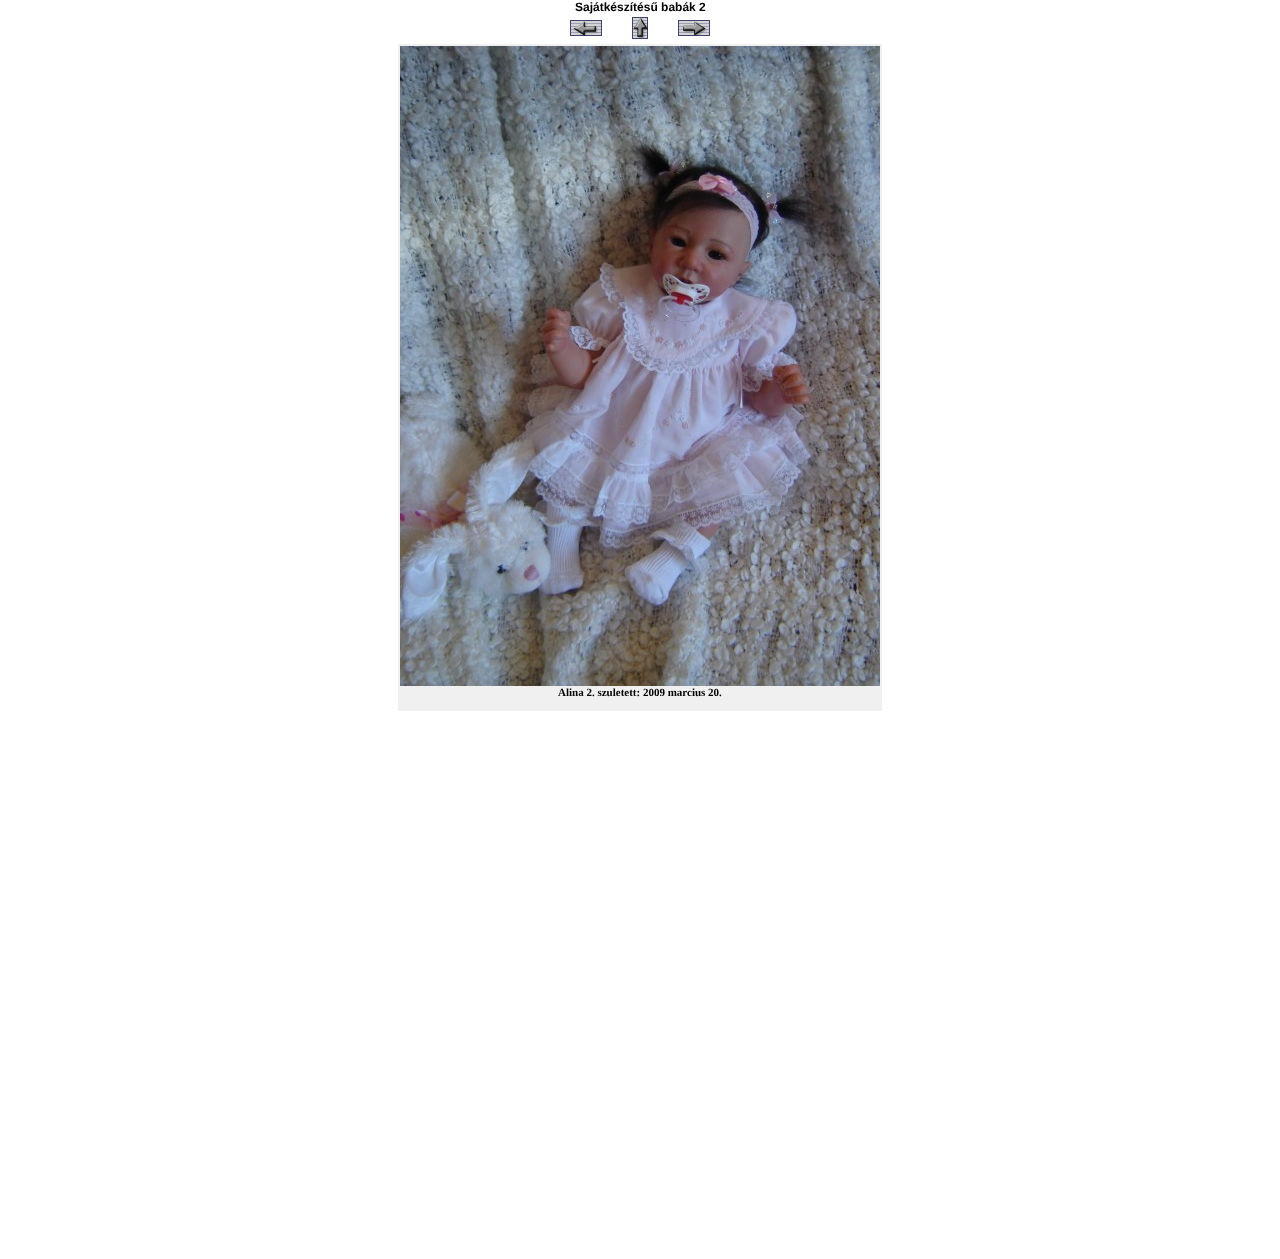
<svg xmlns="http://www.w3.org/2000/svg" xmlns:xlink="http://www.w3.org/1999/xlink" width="1280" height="1259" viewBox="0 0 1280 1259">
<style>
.cls-1{font:bold 12px Liberation Sans;fill:#000000}
.cls-2{font:bold 11px Liberation Serif;fill:#000000}
</style>
<rect width="100%" height="100%" fill="#ffffff"/>
<image xlink:href="image0.png" x="570" y="20" width="32" height="16"/>
<image xlink:href="image1.png" x="632" y="17" width="16" height="22"/>
<image xlink:href="image2.png" x="678" y="20" width="32" height="16"/>
<rect fill="#f0f0f0" x="398" y="44" width="484" height="667"/>
<image xlink:href="image3.png" x="400" y="46" width="480" height="640"/>
<text class="cls-1" x="575" y="11">Sajátkészítésű babák 2</text>
<text class="cls-2" x="558" y="696">Alina 2. szuletett: 2009 marcius 20.</text>
</svg>
